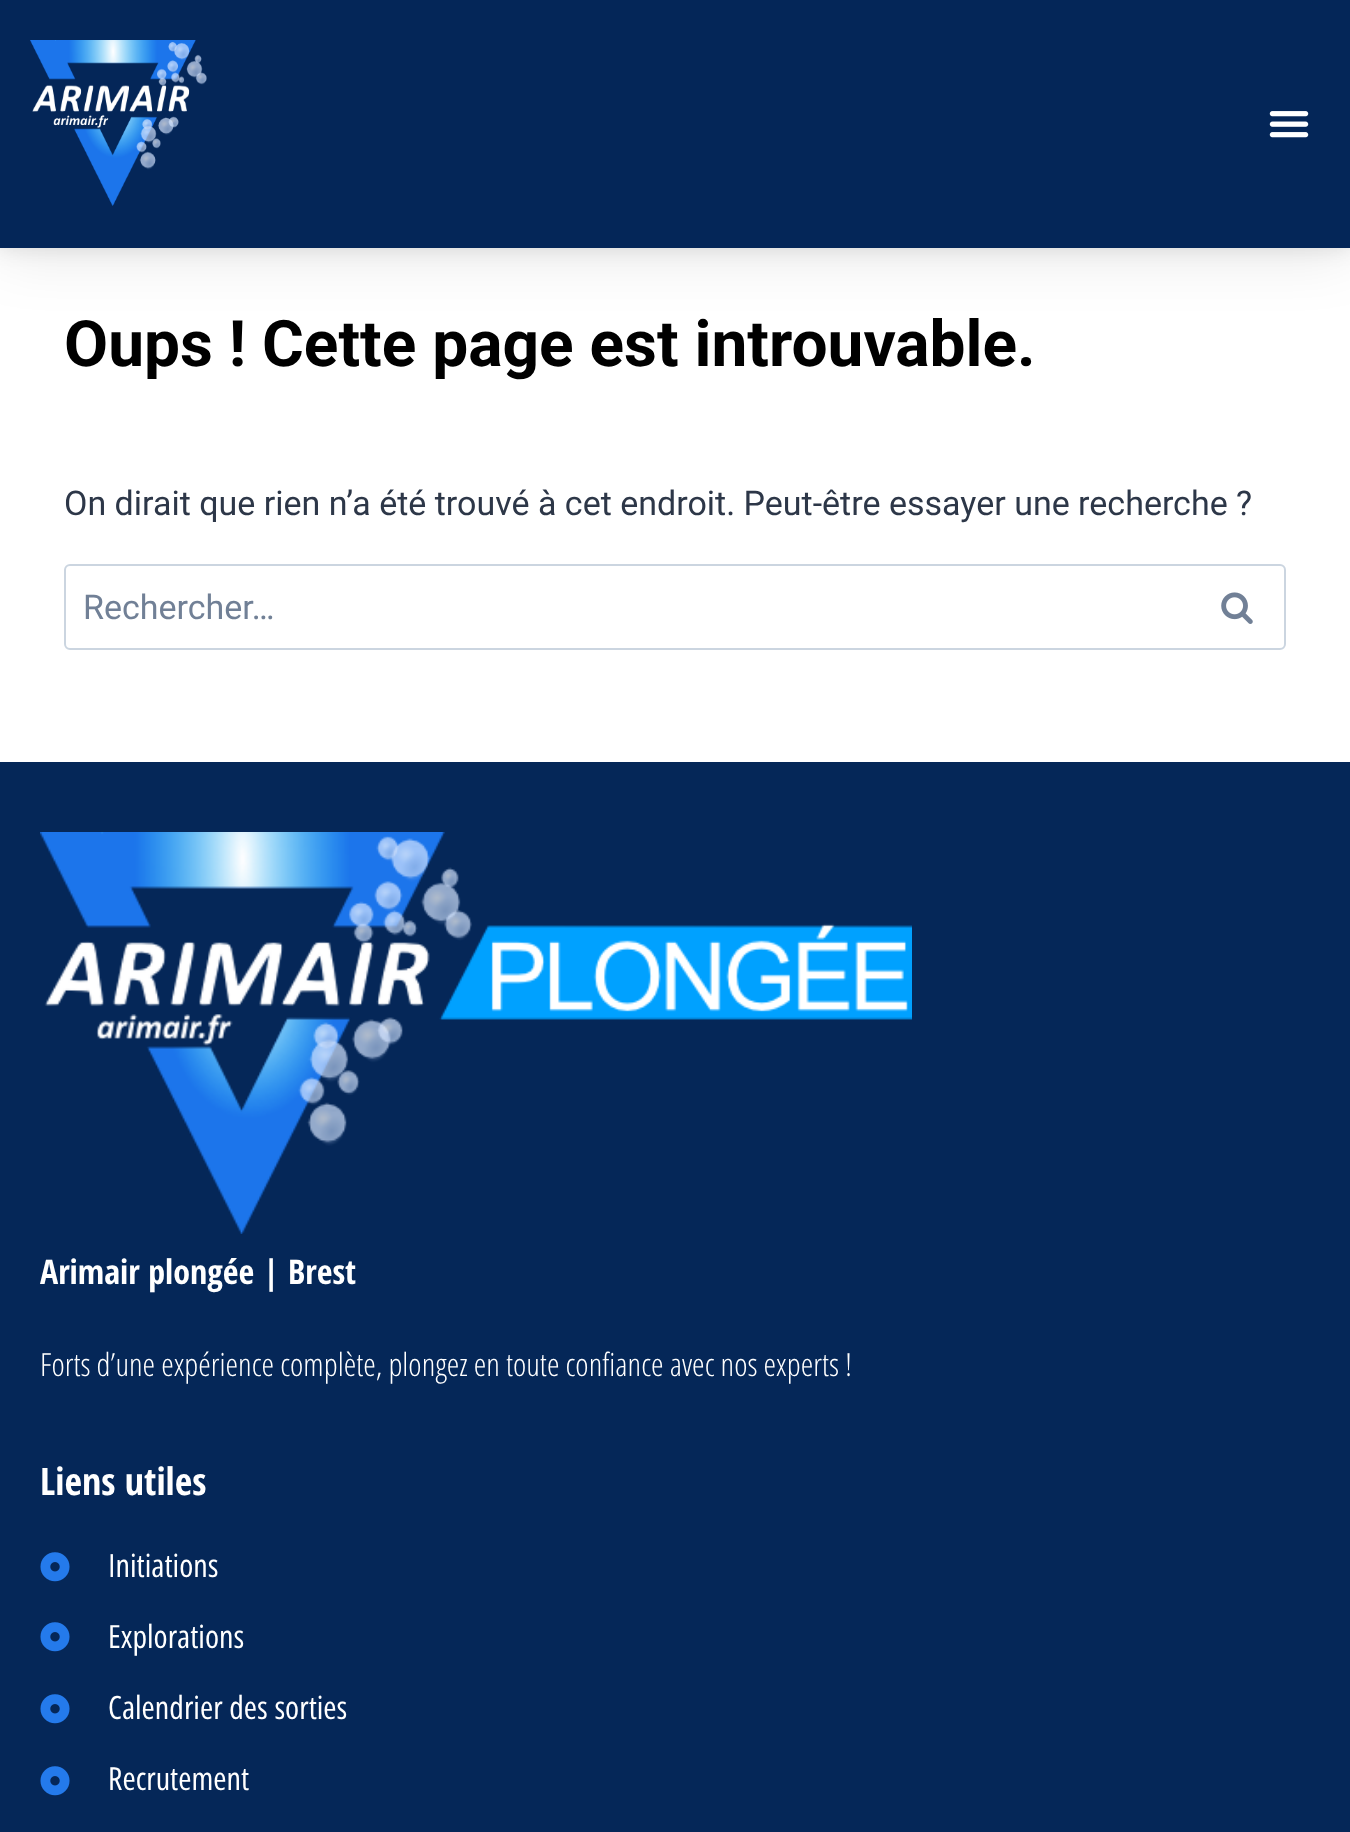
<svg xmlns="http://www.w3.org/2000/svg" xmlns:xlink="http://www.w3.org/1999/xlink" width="1350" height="1832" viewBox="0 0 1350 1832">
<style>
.cls-1{font:bold 64px Roboto;fill:#000000}
.cls-2{font:34px Roboto;fill:#2d3748}
.cls-3{font:34px Roboto;fill:#718096}
.cls-4{font:bold 34px Open Sans Condensed;fill:#ffffff}
.cls-5{font:300 32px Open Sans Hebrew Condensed;fill:#ffffff}
.cls-6{font:bold 38px Open Sans Condensed;fill:#ffffff}
.cls-7{font:32px Open Sans Hebrew Condensed;fill:#ffffff}
</style>
<rect width="100%" height="100%" fill="#ffffff"/>
<rect fill="#000000" fill-opacity="0.1" filter="blur(30px)" x="0" y="-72" width="1350" height="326"/>
<rect fill="#000000" fill-opacity="0.1" filter="blur(10px)" x="0" y="0" width="1350" height="248"/>
<rect fill="#042658" x="0" y="0" width="1350" height="248"/>
<image xlink:href="image0.png" x="30" y="40" width="177" height="166"/>
<image xlink:href="image1.png" x="1269" y="111" width="40" height="27"/>
<rect fill="none" stroke="#cbd5e0" stroke-width="2" x="65" y="565" width="1220" height="84" rx="5"/>
<image xlink:href="image2.png" x="1221" y="592" width="32" height="32"/>
<rect fill="#052758" x="0" y="762" width="1350" height="1070"/>
<image xlink:href="image3.png" x="40" y="832" width="872" height="402"/>
<image xlink:href="image4.png" x="40" y="1552" width="30" height="30"/>
<image xlink:href="image4.png" x="40" y="1622" width="30" height="30"/>
<image xlink:href="image4.png" x="40" y="1694" width="30" height="30"/>
<image xlink:href="image4.png" x="40" y="1766" width="30" height="30"/>
<text class="cls-1" x="64" y="366">Oups ! Cette page est introuvable.</text>
<text class="cls-2" x="64" y="515">On dirait que rien n’a été trouvé à cet endroit. Peut-être essayer une recherche ?</text>
<text class="cls-3" x="83" y="619">Rechercher…</text>
<text class="cls-4" x="40" y="1284">Arimair plongée | Brest</text>
<text class="cls-5" x="40" y="1376">Forts d’une expérience complète, plongez en toute confiance avec nos experts !</text>
<text class="cls-6" x="40" y="1495">Liens utiles</text>
<text class="cls-7" x="108" y="1577">Initiations</text>
<text class="cls-7" x="108" y="1648">Explorations</text>
<text class="cls-7" x="108" y="1719">Calendrier des sorties</text>
<text class="cls-7" x="108" y="1790">Recrutement</text>
</svg>
